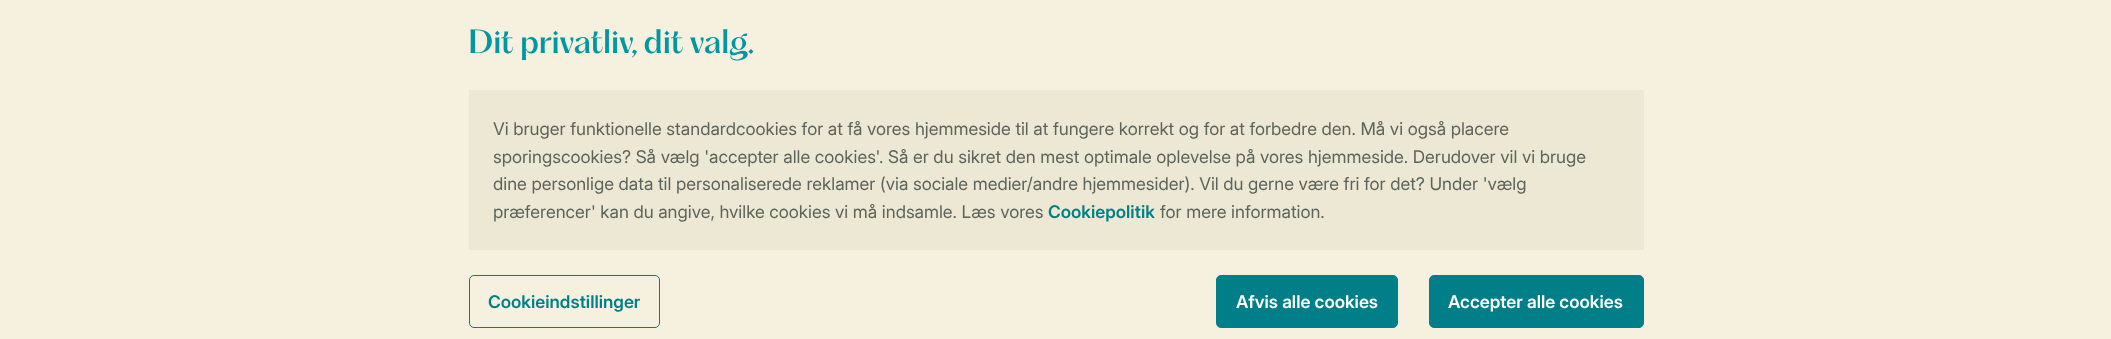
<svg xmlns="http://www.w3.org/2000/svg" xmlns:xlink="http://www.w3.org/1999/xlink" width="2111" height="339" viewBox="0 0 2111 339">
<style>
.cls-1{font:500 30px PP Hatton;fill:#0097a2}
.cls-2{font:17.5px Inter;fill:#5b635b}
.cls-3{font:600 17.5px Inter;fill:#007f88}
.cls-4{font:600 17.5px Inter;fill:#ffffff}
</style>
<rect width="100%" height="100%" fill="#f6f1de"/>
<rect fill="#ede8d3" x="469" y="90" width="1175" height="160"/>
<rect fill="none" stroke="#007f88" x="469.5" y="275.5" width="190" height="52" rx="4.5"/>
<rect fill="#007f88" stroke="#007f88" x="1216.5" y="275.5" width="181" height="52" rx="4.5"/>
<rect fill="#007f88" stroke="#007f88" x="1429.5" y="275.5" width="214" height="52" rx="4.5"/>
<text class="cls-1" x="468" y="53">Dit privatliv, dit valg.</text>
<text class="cls-2"><tspan x="493" y="135">Vi bruger funktionelle standardcookies for at få vores hjemmeside til at fungere korrekt og for at forbedre den. Må vi også placere</tspan><tspan x="493" y="163">sporingscookies? Så vælg 'accepter alle cookies'. Så er du sikret den mest optimale oplevelse på vores hjemmeside. Derudover vil vi bruge</tspan><tspan x="493" y="190">dine personlige data til personaliserede reklamer (via sociale medier/andre hjemmesider). Vil du gerne være fri for det? Under 'vælg</tspan><tspan x="493" y="218">præferencer' kan du angive, hvilke cookies vi må indsamle. Læs vores</tspan></text>
<text class="cls-3" x="1048" y="218">Cookiepolitik</text>
<text class="cls-2" x="1160" y="218">for mere information.</text>
<text class="cls-3" x="488" y="308">Cookieindstillinger</text>
<text class="cls-4" x="1236" y="308">Afvis alle cookies</text>
<text class="cls-4" x="1448" y="308">Accepter alle cookies</text>
</svg>
